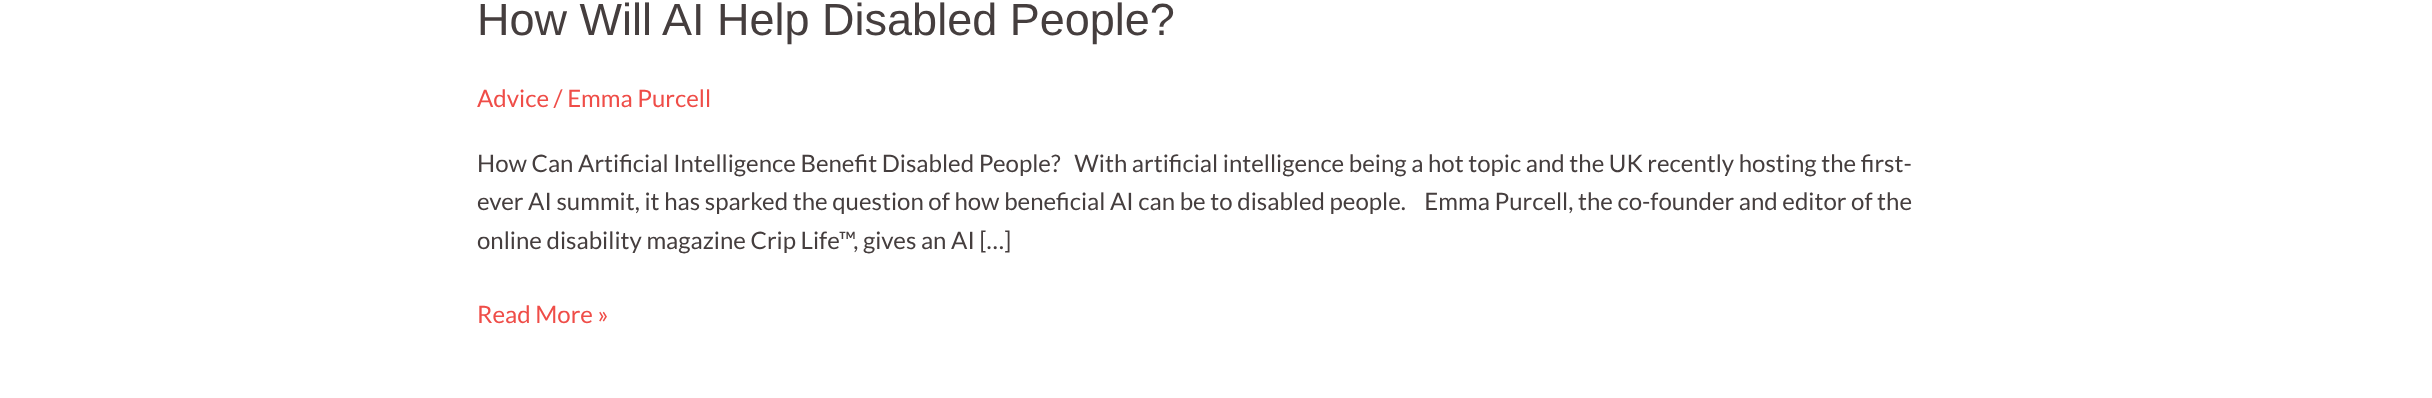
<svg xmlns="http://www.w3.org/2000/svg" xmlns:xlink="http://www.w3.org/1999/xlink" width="2432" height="398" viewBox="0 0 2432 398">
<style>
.cls-1{font:45px Liberation Sans;fill:#453e3e}
.cls-2{font:24px Lato;fill:#ef4d48}
.cls-3{font:24px Lato;fill:#453e3e}
</style>
<rect width="100%" height="100%" fill="#ffffff"/>
<text class="cls-1" x="477" y="35">How Will AI Help Disabled People?</text>
<text class="cls-2" x="477" y="107">Advice / Emma Purcell</text>
<text class="cls-3" xml:space="preserve"><tspan x="477" y="172">How Can Artificial Intelligence Benefit Disabled People?   With artificial intelligence being a hot topic and the UK recently hosting the first-</tspan><tspan x="477" y="210">ever AI summit, it has sparked the question of how beneficial AI can be to disabled people.    Emma Purcell, the co-founder and editor of the</tspan><tspan x="477" y="249">online disability magazine Crip Life™, gives an AI […]</tspan></text>
<text class="cls-2" x="477" y="323">Read More »</text>
</svg>
